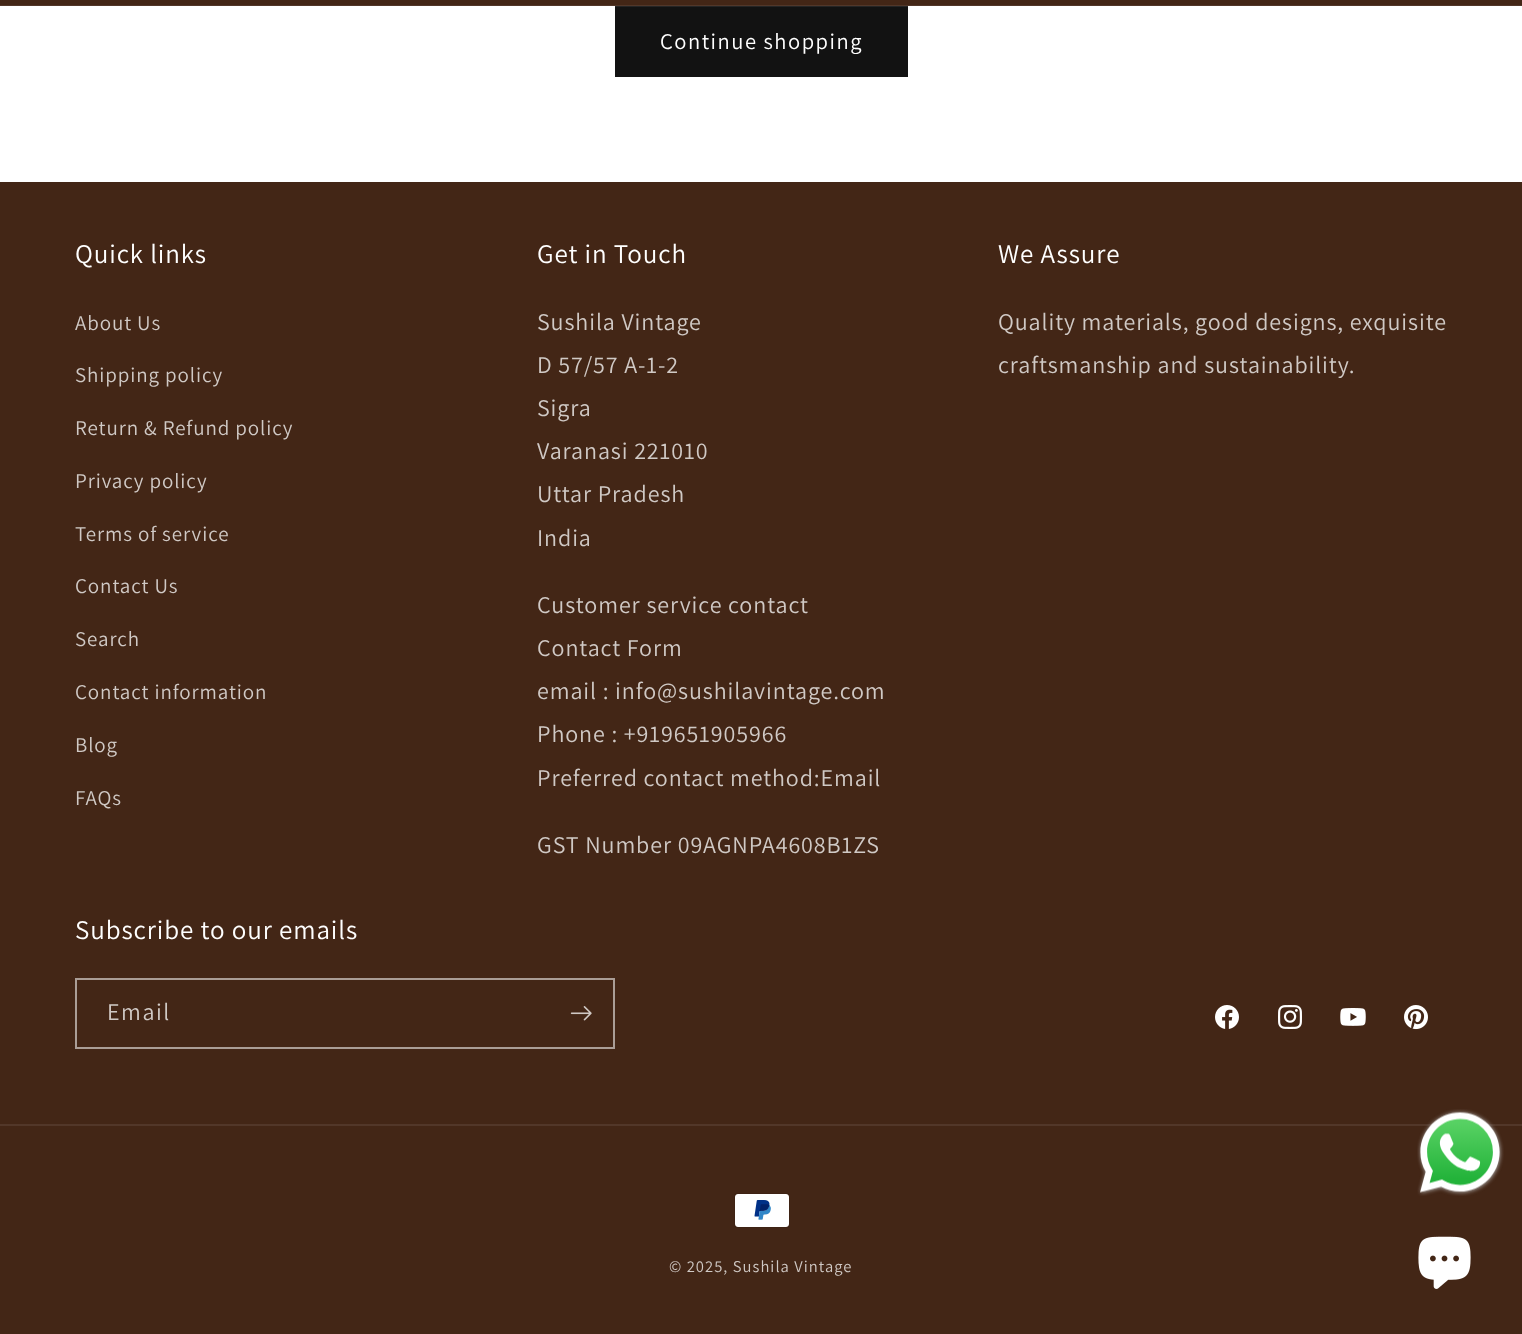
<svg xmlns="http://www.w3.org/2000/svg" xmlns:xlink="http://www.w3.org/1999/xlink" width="1522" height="1334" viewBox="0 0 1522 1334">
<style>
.cls-1{font:22.5px Assistant;letter-spacing:1.5px;fill:#ffffff}
.cls-2{font:27px Assistant;letter-spacing:0.9px;fill:#ffffff}
.cls-3{font:21px Assistant;letter-spacing:0.9px;fill:#d0c9c5}
.cls-4{font:24px Assistant;letter-spacing:0.9px;fill:#d0c9c5}
.cls-5{font:24px Assistant;letter-spacing:1.5px;fill:#d0c9c5}
.cls-6{font:16.5px Assistant;letter-spacing:1.05px;fill:#d0c9c5}
</style>
<rect width="100%" height="100%" fill="#ffffff"/>
<rect fill="#432616" x="0" y="0" width="1522" height="5"/>
<rect fill="#523729" x="0" y="5" width="1522" height="1"/>
<rect fill="#121212" x="615" y="7" width="293" height="70"/>
<rect fill="#252525" x="615" y="6" width="293" height="1"/>
<rect fill="#432616" x="0" y="182" width="1522" height="1152"/>
<rect fill="none" stroke="#aa9d96" stroke-width="2" x="76" y="979" width="538" height="69"/>
<image xlink:href="image0.png" x="570" y="1006" width="22" height="15"/>
<image xlink:href="image1.png" x="1215" y="1005" width="24" height="24"/>
<image xlink:href="image2.png" x="1278" y="1005" width="24" height="24"/>
<image xlink:href="image3.png" x="1340" y="1008" width="26" height="18"/>
<image xlink:href="image4.png" x="1404" y="1005" width="24" height="25"/>
<rect fill="#523729" x="0" y="1124" width="1522" height="2"/>
<image xlink:href="image5.png" x="734" y="1193" width="56" height="35"/>
<image xlink:href="image6.png" x="1417" y="1109" width="87" height="87"/>
<image xlink:href="image7.png" x="1418" y="1236" width="53" height="53"/>
<text class="cls-1" x="660" y="49">Continue shopping</text>
<text class="cls-2" x="75" y="263">Quick links</text>
<text class="cls-3" x="75" y="330">About Us</text>
<text class="cls-3" x="75" y="382">Shipping policy</text>
<text class="cls-3" x="75" y="435">Return &amp; Refund policy</text>
<text class="cls-3" x="75" y="488">Privacy policy</text>
<text class="cls-3" x="75" y="541">Terms of service</text>
<text class="cls-3" x="75" y="593">Contact Us</text>
<text class="cls-3" x="75" y="646">Search</text>
<text class="cls-3" x="75" y="699">Contact information</text>
<text class="cls-3" x="75" y="752">Blog</text>
<text class="cls-3" x="75" y="805">FAQs</text>
<text class="cls-2" x="537" y="263">Get in Touch</text>
<text class="cls-4"><tspan x="537" y="330">Sushila Vintage</tspan><tspan x="537" y="373">D 57/57 A-1-2</tspan><tspan x="537" y="416">Sigra</tspan><tspan x="537" y="459">Varanasi 221010</tspan><tspan x="537" y="502">Uttar Pradesh</tspan><tspan x="537" y="546">India</tspan></text>
<text class="cls-4"><tspan x="537" y="613">Customer service contact</tspan><tspan x="537" y="656">Contact Form</tspan><tspan x="537" y="699">email : info@sushilavintage.com</tspan><tspan x="537" y="742">Phone : +919651905966</tspan><tspan x="537" y="786">Preferred contact method:Email</tspan></text>
<text class="cls-4" x="537" y="853">GST Number 09AGNPA4608B1ZS</text>
<text class="cls-2" x="998" y="263">We Assure</text>
<text class="cls-4"><tspan x="998" y="330">Quality materials, good designs, exquisite</tspan><tspan x="998" y="373">craftsmanship and sustainability.</tspan></text>
<text class="cls-2" x="75" y="939">Subscribe to our emails</text>
<text class="cls-5" x="107" y="1020">Email</text>
<text class="cls-6" x="669" y="1272">© 2025, Sushila Vintage</text>
</svg>
